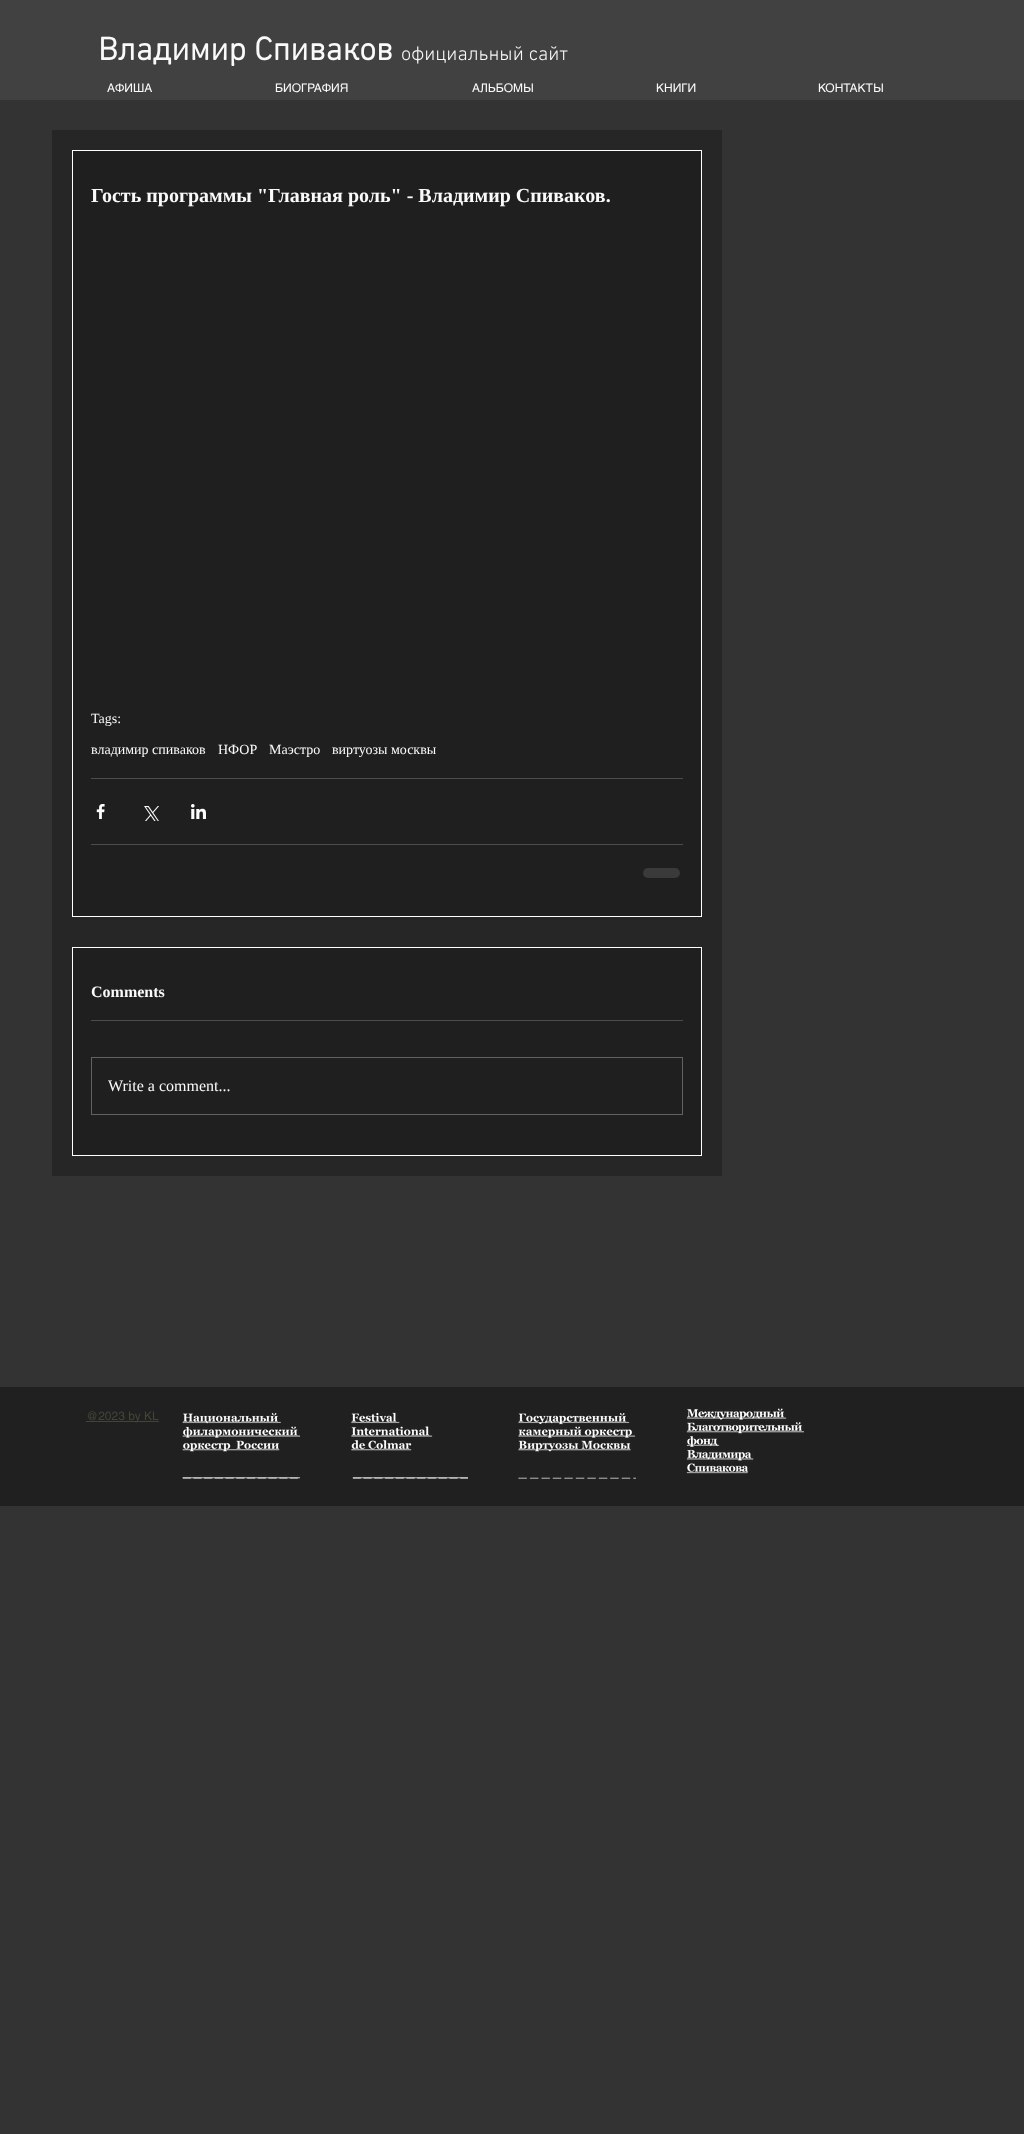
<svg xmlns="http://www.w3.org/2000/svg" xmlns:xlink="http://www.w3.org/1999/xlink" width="1024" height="2134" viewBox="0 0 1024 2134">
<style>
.cls-1{font:bold 33px 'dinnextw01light';fill:#fafafa}
.cls-2{font:300 20px 'dinnextw01light';fill:#fafafa}
.cls-3{font:12px helvetica;fill:#fafafa}
.cls-4{font:bold 20px Liberation Serif;fill:#fafafa}
.cls-5{font:14px Liberation Serif;fill:#fafafa}
.cls-6{font:bold 16px Liberation Serif;fill:#fafafa}
.cls-7{font:16px Liberation Serif;fill:#fafafa}
.cls-8{font:12px helvetica;fill:#3f4539}
</style>
<rect width="100%" height="100%" fill="#333333"/>
<rect fill="#414141" x="0" y="0" width="1024" height="100"/>
<rect fill="#262626" x="52" y="130" width="670" height="1046"/>
<rect fill="#1f1f1f" stroke="#ffffff" x="72.5" y="150.5" width="629" height="766"/>
<rect fill="#4c4c4c" x="91" y="778" width="592" height="1"/>
<image xlink:href="image0.png" x="96" y="804" width="9" height="15"/>
<image xlink:href="image1.png" x="144" y="806" width="15" height="15"/>
<image xlink:href="image2.png" x="191" y="804" width="15" height="15"/>
<rect fill="#4c4c4c" x="91" y="844" width="592" height="1"/>
<rect fill="#3a3a3a" x="643" y="868" width="37" height="10" rx="5"/>
<rect fill="#1f1f1f" stroke="#ffffff" x="72.5" y="947.5" width="629" height="208"/>
<rect fill="#4c4c4c" x="91" y="1020" width="592" height="1"/>
<rect fill="none" stroke="#626262" x="91.5" y="1057.5" width="591" height="57"/>
<rect fill="#202020" x="0" y="1387" width="1024" height="119"/>
<rect fill="#3f4539" x="86" y="1421" width="73" height="1"/>
<image xlink:href="image3.png" x="182" y="1413" width="118" height="66"/>
<image xlink:href="image4.png" x="351" y="1412" width="117" height="67"/>
<image xlink:href="image5.png" x="518" y="1413" width="118" height="66"/>
<image xlink:href="image6.png" x="686" y="1408" width="118" height="66"/>
<text class="cls-1" x="98" y="60">Владимир Спиваков</text>
<text class="cls-2" x="401" y="60">oфициальный сайт</text>
<text class="cls-3" x="107" y="92">АФИША</text>
<text class="cls-3" x="275" y="92">БИОГРАФИЯ</text>
<text class="cls-3" x="472" y="92">АЛЬБОМЫ</text>
<text class="cls-3" x="656" y="92">КНИГИ</text>
<text class="cls-3" x="818" y="92">КОНТАКТЫ</text>
<text class="cls-4" x="91" y="202">Гость программы "Главная роль" - Владимир Спиваков.</text>
<text class="cls-5" x="91" y="723">Tags:</text>
<text class="cls-5" x="91" y="754">владимир спиваков</text>
<text class="cls-5" x="218" y="754">НФОР</text>
<text class="cls-5" x="269" y="754">Маэстро</text>
<text class="cls-5" x="332" y="754">виртуозы москвы</text>
<text class="cls-6" x="91" y="997">Comments</text>
<text class="cls-7" x="108" y="1091">Write a comment...</text>
<text class="cls-8" x="86" y="1420">@2023 by KL</text>
</svg>
